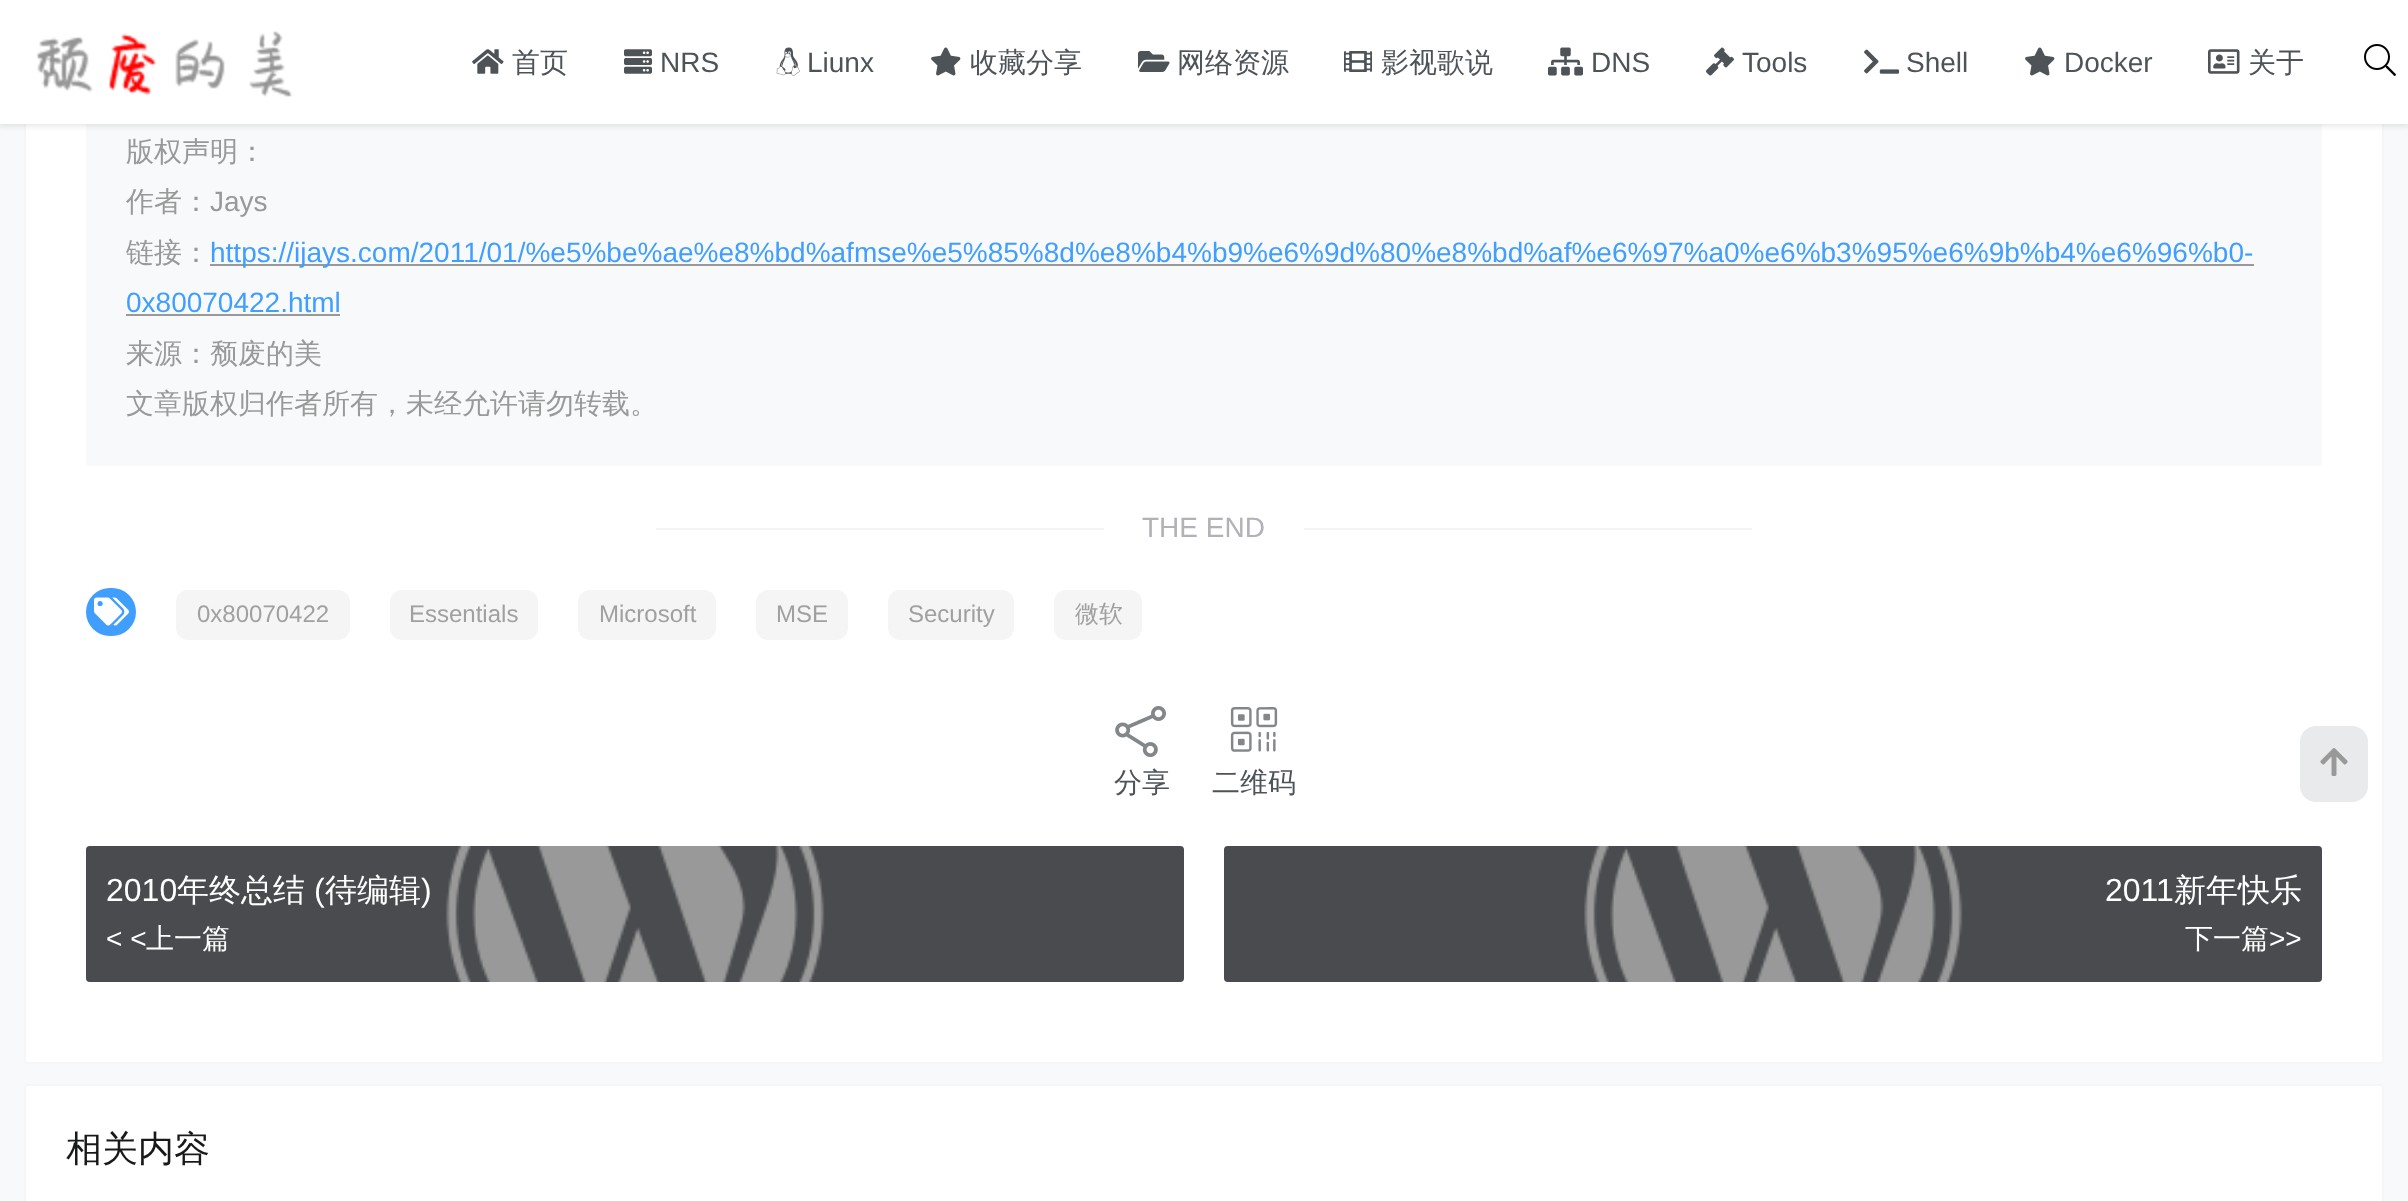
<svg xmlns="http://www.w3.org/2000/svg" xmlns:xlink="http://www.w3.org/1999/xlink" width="2408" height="1201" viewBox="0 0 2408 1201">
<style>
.cls-1{font:500 28px WenQuanYi Zen Hei;fill:#4e5358}
.cls-2{font:28px Liberation Sans;fill:#4e5358}
.cls-3{font:500 28px WenQuanYi Zen Hei;fill:#999999}
.cls-4{font:28px Liberation Sans;fill:#999999}
.cls-5{font:28px Liberation Sans;fill:#409eff}
.cls-6{font:28px Liberation Sans;fill:#b1b1b8}
.cls-7{font:24px Liberation Sans;fill:#a0a0a0}
.cls-8{font:500 24px WenQuanYi Zen Hei;fill:#a0a0a0}
.cls-9{font:32px Liberation Sans;fill:#ffffff}
.cls-10{font:500 32px WenQuanYi Zen Hei;fill:#ffffff}
.cls-11{font:28px Liberation Sans;fill:#ffffff}
.cls-12{font:500 28px WenQuanYi Zen Hei;fill:#ffffff}
.cls-13{font:500 36px WenQuanYi Zen Hei;fill:#18191a}
</style>
<rect width="100%" height="100%" fill="#f7f9fa"/>
<rect fill="#ffffff" stroke="#f5f6f7" stroke-width="2" x="25" y="-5" width="2358" height="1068" rx="3"/>
<rect fill="#f7f9fa" x="86" y="112" width="2236" height="354" rx="4"/>
<rect fill="#000000" fill-opacity="0.1" filter="blur(3px)" x="-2" y="-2" width="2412" height="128"/>
<rect fill="#ffffff" x="0" y="0" width="2408" height="124"/>
<image xlink:href="image0.png" x="36" y="31" width="257" height="66"/>
<image xlink:href="image1.png" x="472" y="49" width="32" height="25"/>
<image xlink:href="image2.png" x="624" y="49" width="28" height="25"/>
<image xlink:href="image3.png" x="776" y="47" width="24" height="29"/>
<image xlink:href="image4.png" x="931" y="47" width="30" height="29"/>
<image xlink:href="image5.png" x="1138" y="51" width="32" height="21"/>
<image xlink:href="image6.png" x="1344" y="51" width="28" height="21"/>
<image xlink:href="image7.png" x="1548" y="47" width="35" height="29"/>
<image xlink:href="image8.png" x="1706" y="47" width="28" height="29"/>
<image xlink:href="image9.png" x="1864" y="49" width="36" height="25"/>
<image xlink:href="image4.png" x="2025" y="47" width="30" height="29"/>
<image xlink:href="image10.png" x="2208" y="49" width="32" height="25"/>
<image xlink:href="image11.png" x="2364" y="44" width="32" height="32"/>
<rect fill="#999999" x="210" y="264" width="2044" height="2"/>
<rect fill="#999999" x="126" y="314" width="214" height="2"/>
<rect fill="#f3f3f3" x="656" y="528" width="448" height="2"/>
<rect fill="#f3f3f3" x="1304" y="528" width="448" height="2"/>
<rect fill="#409eff" x="86" y="588" width="50" height="48" rx="24"/>
<image xlink:href="image12.png" x="94" y="597" width="35" height="29"/>
<rect fill="#f5f5f5" x="176" y="590" width="174" height="50" rx="12"/>
<rect fill="#f5f5f5" x="390" y="590" width="148" height="50" rx="12"/>
<rect fill="#f5f5f5" x="578" y="590" width="138" height="50" rx="12"/>
<rect fill="#f5f5f5" x="756" y="590" width="92" height="50" rx="12"/>
<rect fill="#f5f5f5" x="888" y="590" width="126" height="50" rx="12"/>
<rect fill="#f5f5f5" x="1054" y="590" width="88" height="50" rx="12"/>
<image xlink:href="image13.png" x="1115" y="706" width="51" height="52"/>
<image xlink:href="image14.png" x="1230" y="707" width="48" height="45"/>
<image xlink:href="image15.png" x="86" y="846" width="1098" height="136"/>
<rect fill="#000000" fill-opacity="0.4" x="86" y="846" width="1098" height="136" rx="4"/>
<image xlink:href="image15.png" x="1224" y="846" width="1098" height="136"/>
<rect fill="#000000" fill-opacity="0.4" x="1224" y="846" width="1098" height="136" rx="4"/>
<rect fill="#ffffff" stroke="#f5f6f7" stroke-width="2" x="25" y="1085" width="2358" height="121" rx="3"/>
<rect fill="#e8eaeb" x="2300" y="726" width="68" height="76" rx="16"/>
<image xlink:href="image16.png" x="2320" y="748" width="28" height="28"/>
<text class="cls-1" x="512" y="72">首页</text>
<text class="cls-2" x="660" y="72">NRS</text>
<text class="cls-2" x="807" y="72">Liunx</text>
<text class="cls-1" x="970" y="72">收藏分享</text>
<text class="cls-1" x="1177" y="72">网络资源</text>
<text class="cls-1" x="1381" y="72">影视歌说</text>
<text class="cls-2" x="1591" y="72">DNS</text>
<text class="cls-2" x="1742" y="72">Tools</text>
<text class="cls-2" x="1906" y="72">Shell</text>
<text class="cls-2" x="2064" y="72">Docker</text>
<text class="cls-1" x="2248" y="72">关于</text>
<text class="cls-3"><tspan x="126" y="161">版权声明：</tspan><tspan x="126" y="211">作者：</tspan></text>
<text class="cls-4" x="210" y="211">Jays</text>
<text class="cls-3" x="126" y="262">链接：</text>
<text class="cls-5" x="210" y="262">https://ijays.com/2011/01/%e5%be%ae%e8%bd%afmse%e5%85%8d%e8%b4%b9%e6%9d%80%e8%bd%af%e6%97%a0%e6%b3%95%e6%9b%b4%e6%96%b0-</text>
<text class="cls-5" x="126" y="312">0x80070422.html</text>
<text class="cls-3"><tspan x="126" y="363">来源：颓废的美</tspan><tspan x="126" y="413">文章版权归作者所有，未经允许请勿转载。</tspan></text>
<text class="cls-6" x="1142" y="537">THE END</text>
<text class="cls-7" x="197" y="622">0x80070422</text>
<text class="cls-7" x="409" y="622">Essentials</text>
<text class="cls-7" x="599" y="622">Microsoft</text>
<text class="cls-7" x="776" y="622">MSE</text>
<text class="cls-7" x="908" y="622">Security</text>
<text class="cls-8" x="1075" y="622">微软</text>
<text class="cls-1" x="1114" y="792">分享</text>
<text class="cls-1" x="1212" y="792">二维码</text>
<text class="cls-9" x="106" y="901">2010</text>
<text class="cls-10" x="177" y="901">年终总结</text>
<text class="cls-9" x="314" y="901">(</text>
<text class="cls-10" x="325" y="901">待编辑</text>
<text class="cls-9" x="421" y="901">)</text>
<text class="cls-11" x="106" y="948">&lt; &lt;</text>
<text class="cls-12" x="146" y="948">上一篇</text>
<text class="cls-9" x="2105" y="901">2011</text>
<text class="cls-10" x="2174" y="901">新年快乐</text>
<text class="cls-12" x="2185" y="948">下一篇</text>
<text class="cls-11" x="2269" y="948">&gt;&gt;</text>
<text class="cls-13" x="66" y="1161">相关内容</text>
</svg>
